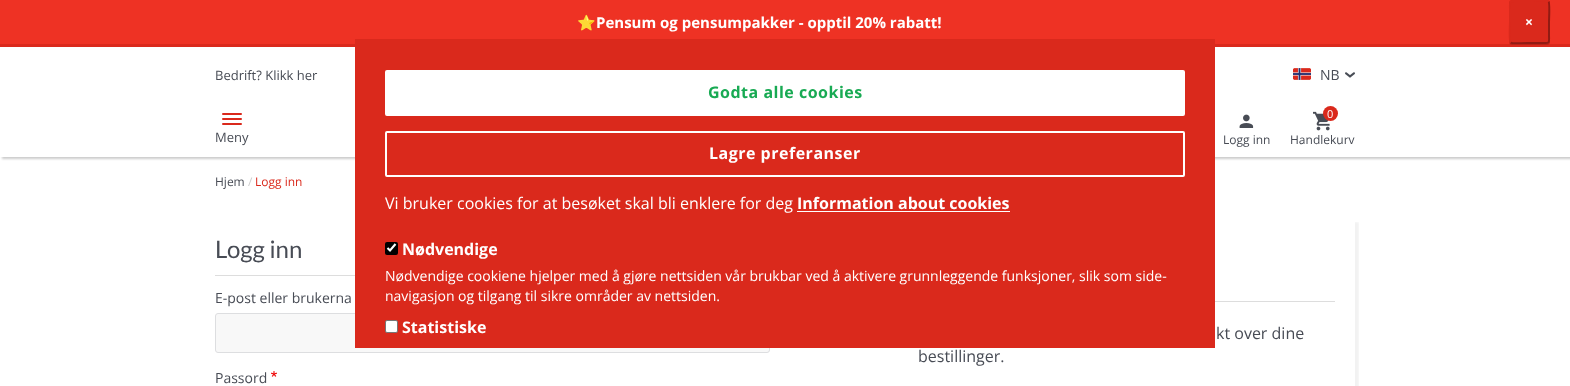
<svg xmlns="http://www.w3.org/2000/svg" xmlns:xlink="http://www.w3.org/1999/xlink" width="1570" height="386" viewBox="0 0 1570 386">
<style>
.cls-1{font:bold 15px Noto Color Emoji;fill:#ffffff}
.cls-2{font:bold 15px Open Sans;fill:#ffffff}
.cls-3{font:bold 14px Open Sans;letter-spacing:1px;fill:#ffffff}
.cls-4{font:13px Open Sans;fill:#484c55}
.cls-5{font:14px Open Sans;fill:#484c55}
.cls-6{font:12px Open Sans;fill:#484c55}
.cls-7{font:11px Open Sans;fill:#ffffff}
.cls-8{font:12px Open Sans;fill:#cccccc}
.cls-9{font:12px Open Sans;fill:#da291c}
.cls-10{font:24px Lato;fill:#484c55}
.cls-11{font:16px Open Sans;fill:#484c55}
.cls-12{font:bold 16px Open Sans;letter-spacing:0.5px;fill:#18aa53}
.cls-13{font:bold 16px Open Sans;letter-spacing:0.5px;fill:#ffffff}
.cls-14{font:16px Open Sans;fill:#ffffff}
.cls-15{font:bold 16px Open Sans;fill:#ffffff}
.cls-16{font:14px Open Sans;fill:#ffffff}
</style>
<defs>
<clipPath id="clip1"><rect x="0" y="0" width="1570" height="44"/></clipPath>
<clipPath id="clip2"><rect x="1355" y="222" width="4" height="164"/></clipPath>
</defs>
<rect width="100%" height="100%" fill="#ffffff"/>
<rect fill="#000000" fill-opacity="0.2" filter="blur(1px)" x="2" y="44" width="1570" height="115"/>
<rect fill="#ee3224" x="0" y="0" width="1570" height="44"/>
<rect fill="#ffffff" x="0" y="47" width="1570" height="110"/>
<rect fill="#da291c" x="0" y="44" width="1570" height="3"/>
<rect fill="#000000" fill-opacity="0.15" filter="blur(0.5px)" x="1509" y="1" width="41" height="44" rx="3"/>
<rect fill="#da291c" x="1509" y="0" width="41" height="44" rx="3"/>
<g clip-path="url(#clip1)">
<path fill="none" stroke="#911b13" stroke-width="2" d="M1548.5 1.5C1550 3 1549 19 1549 22V34.5C1549 44 1550.5 43 1541 43H1529.5C1526.5 43 1512 44 1510.5 42.5"/>
</g>
<path fill="none" stroke="#da291c" stroke-width="2" d="M1510.5 42.5C1509 41 1510 25 1510 22V9.5C1510 0 1508.5 1 1518 1H1529.5C1532.5 1 1547 0 1548.5 1.5"/>
<image xlink:href="image0.png" x="1293" y="68" width="18" height="12"/>
<rect fill="none" stroke="#ffffff" x="1292.5" y="67.5" width="19" height="13" rx="1.5"/>
<image xlink:href="image1.png" x="1345" y="72" width="10" height="6"/>
<rect fill="#da291c" x="222" y="118" width="20" height="2" rx="1"/>
<rect fill="#da291c" x="222" y="113" width="20" height="2" rx="1"/>
<rect fill="#da291c" x="222" y="123" width="20" height="2" rx="1"/>
<image xlink:href="image2.png" x="1239" y="114" width="15" height="14"/>
<image xlink:href="image3.png" x="1313" y="111" width="17" height="20"/>
<circle fill="#da291c" cx="1330.5" cy="113.5" r="7.5"/>
<rect fill="#dddddd" x="215" y="275" width="140" height="1"/>
<rect fill="#f8f8f8" stroke="#dddee0" x="215.5" y="313.5" width="554" height="39" rx="2.5"/>
<image xlink:href="image4.png" x="271" y="371" width="6" height="6"/>
<g clip-path="url(#clip2)">
<rect fill="#000000" fill-opacity="0.05" filter="blur(1px)" x="898" y="222" width="461" height="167"/>
</g>
<rect fill="#dddddd" x="1215" y="301" width="120" height="1"/>
<rect fill="#da291c" x="355" y="39" width="860" height="309"/>
<rect fill="#ffffff" stroke="#ffffff" stroke-width="2" x="386" y="71" width="798" height="44" rx="1"/>
<rect fill="none" stroke="#ffffff" stroke-width="2" x="386" y="132" width="798" height="44" rx="1"/>
<rect fill="#ffffff" x="797" y="211" width="213" height="1"/>
<rect fill="#000000" x="385" y="242" width="13" height="13" rx="2"/>
<path fill="none" stroke="#ffffff" stroke-width="2.1" d="M387.5 248L390 250.5L395.5 244"/>
<rect fill="#ffffff" stroke="#767676" x="385.5" y="320.5" width="12" height="12" rx="1.5"/>
<text class="cls-1" x="577" y="28">⭐</text>
<text class="cls-2" x="596" y="28">Pensum og pensumpakker - opptil 20% rabatt!</text>
<text class="cls-3" x="1525" y="27">×</text>
<text class="cls-4" x="215" y="80">Bedrift? Klikk her</text>
<text class="cls-5" x="1320" y="80">NB</text>
<text class="cls-4" x="215" y="142">Meny</text>
<text class="cls-6" x="1223" y="144">Logg inn</text>
<text class="cls-7" x="1327" y="118">0</text>
<text class="cls-6" x="1290" y="144">Handlekurv</text>
<text class="cls-6" x="215" y="186">Hjem</text>
<text class="cls-8" x="248" y="186">/</text>
<text class="cls-9" x="255" y="186">Logg inn</text>
<text class="cls-10" x="215" y="258">Logg inn</text>
<text class="cls-5" x="215" y="303">E-post eller brukerna</text>
<text class="cls-5" x="215" y="383">Passord</text>
<text class="cls-11" x="1216" y="339">kt over dine</text>
<text class="cls-11" x="918" y="362">bestillinger.</text>
<text class="cls-12" x="708" y="98">Godta alle cookies</text>
<text class="cls-13" x="709" y="159">Lagre preferanser</text>
<text class="cls-14" x="385" y="209">Vi bruker cookies for at besøket skal bli enklere for deg</text>
<text class="cls-15" x="797" y="209">Information about cookies</text>
<text class="cls-15" x="402" y="255">Nødvendige</text>
<text class="cls-16"><tspan x="385" y="281">Nødvendige cookiene hjelper med å gjøre nettsiden vår brukbar ved å aktivere grunnleggende funksjoner, slik som side-</tspan><tspan x="385" y="301">navigasjon og tilgang til sikre områder av nettsiden.</tspan></text>
<text class="cls-15" x="402" y="333">Statistiske</text>
</svg>
